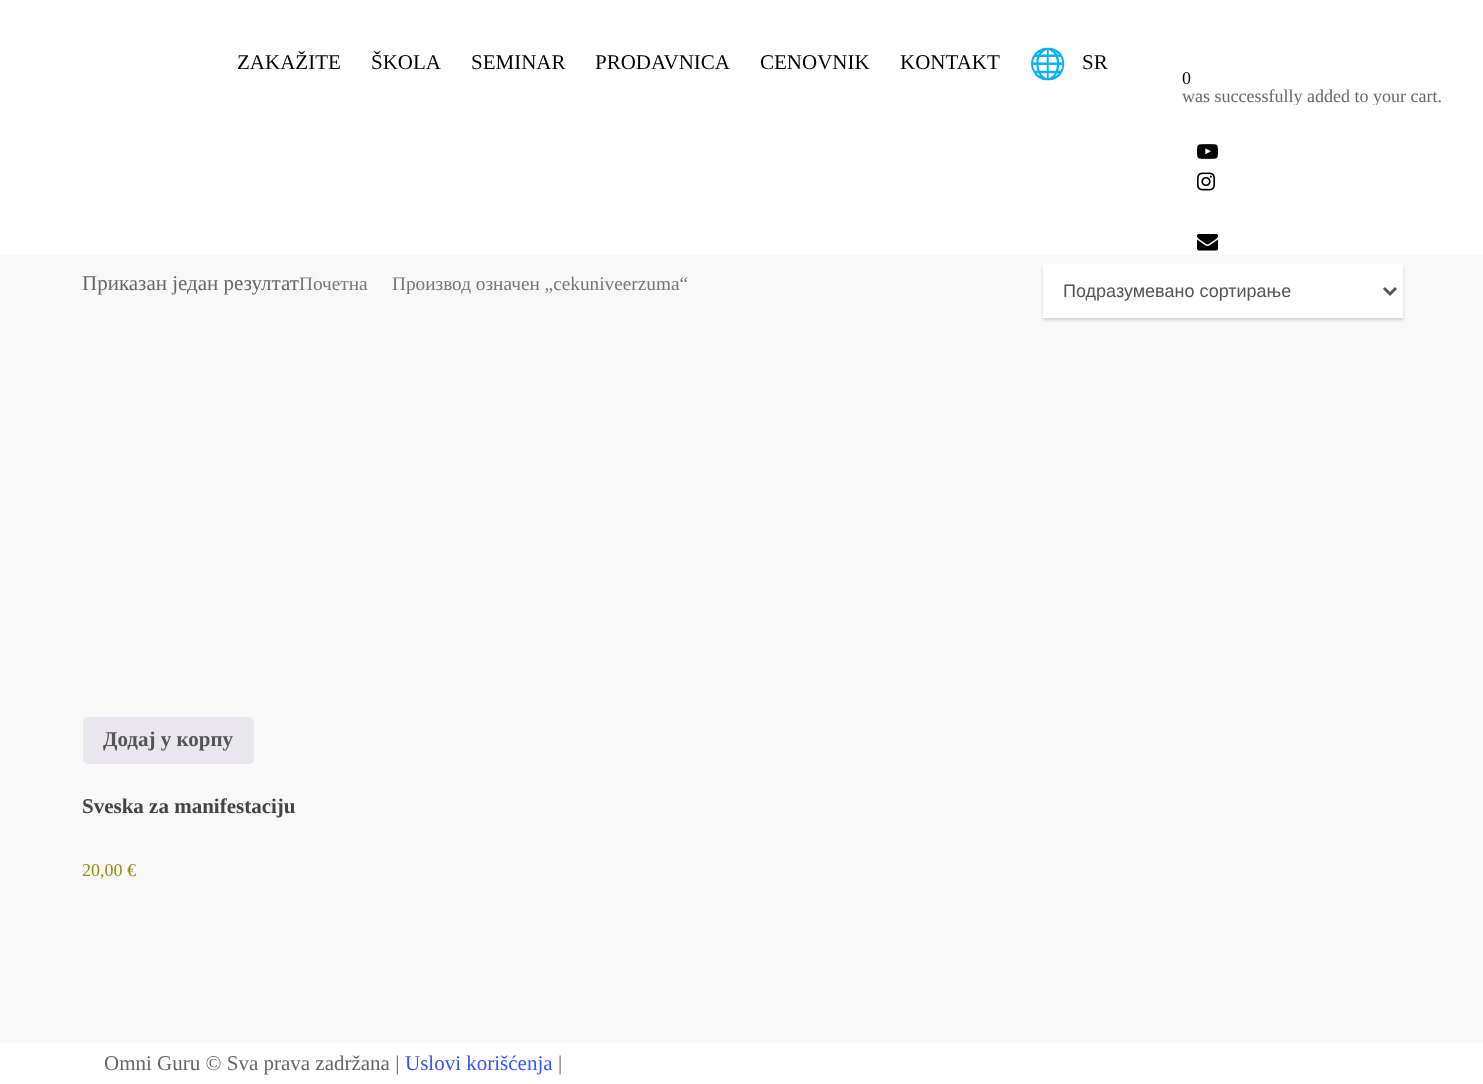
<svg xmlns="http://www.w3.org/2000/svg" xmlns:xlink="http://www.w3.org/1999/xlink" width="1483" height="1084" viewBox="0 0 1483 1084">
<style>
.cls-1{font:21px Liberation Serif;fill:#000000}
.cls-2{font:30px Noto Color Emoji;fill:#000000}
.cls-3{font:18px Liberation Serif;fill:#000000}
.cls-4{font:18px Liberation Serif;fill:#676767}
.cls-5{font:21px Liberation Serif;fill:#676767}
.cls-6{font:19.3px Liberation Serif;fill:#767676}
.cls-7{font:18px Liberation Sans;fill:#555555}
.cls-8{font:bold 21px Liberation Serif;fill:#555555}
.cls-9{font:bold 21px Liberation Serif;fill:#444444}
.cls-10{font:18px Liberation Serif;fill:#958e09}
.cls-11{font:21px Liberation Serif;fill:#3555ff}
</style>
<defs>
<clipPath id="clip1"><rect x="1182" y="42" width="260" height="63"/></clipPath>
</defs>
<rect width="100%" height="100%" fill="#ffffff"/>
<image xlink:href="image0.png" x="1197" y="144" width="21" height="15"/>
<image xlink:href="image1.png" x="1197" y="172" width="18" height="19"/>
<image xlink:href="image2.png" x="1197" y="234" width="21" height="17"/>
<rect fill="#f8f8f8" x="0" y="255" width="1483" height="788"/>
<rect fill="#000000" fill-opacity="0.16" filter="blur(1.5px)" x="1043" y="266" width="360" height="54"/>
<rect fill="#ffffff" x="1043" y="264" width="360" height="54"/>
<path fill="none" stroke="#555555" stroke-width="3" d="M1384 288L1390 294L1396 288"/>
<rect fill="#e9e6ed" x="83" y="717" width="171" height="47" rx="5"/>
<text class="cls-1" x="237" y="69">ZAKAŽITE</text>
<text class="cls-1" x="371" y="69">ŠKOLA</text>
<text class="cls-1" x="471" y="69">SEMINAR</text>
<text class="cls-1" x="595" y="69">PRODAVNICA</text>
<text class="cls-1" x="760" y="69">CENOVNIK</text>
<text class="cls-1" x="900" y="69">KONTAKT</text>
<text class="cls-2" x="1029" y="74">🌐</text>
<text class="cls-1" x="1082" y="69">SR</text>
<text class="cls-3" x="1182" y="84">0</text>
<g clip-path="url(#clip1)">
<text class="cls-4" x="1182" y="102">was successfully added to your cart.</text>
</g>
<text class="cls-5" x="82" y="290">Приказан један резултат</text>
<text class="cls-6" x="299" y="290">Почетна</text>
<text class="cls-6" x="392" y="290">Производ oзначен „cekuniveerzuma“</text>
<text class="cls-7" x="1063" y="297">Подразумевано сортирање</text>
<text class="cls-8" x="103" y="746">Додај у корпу</text>
<text class="cls-9" x="82" y="813">Sveska za manifestaciju</text>
<text class="cls-10" x="82" y="876">20,00 €</text>
<text class="cls-5" x="104" y="1070">Omni Guru © Sva prava zadržana |</text>
<text class="cls-11" x="405" y="1070">Uslovi korišćenja</text>
<text class="cls-5" x="558" y="1070">|</text>
</svg>
